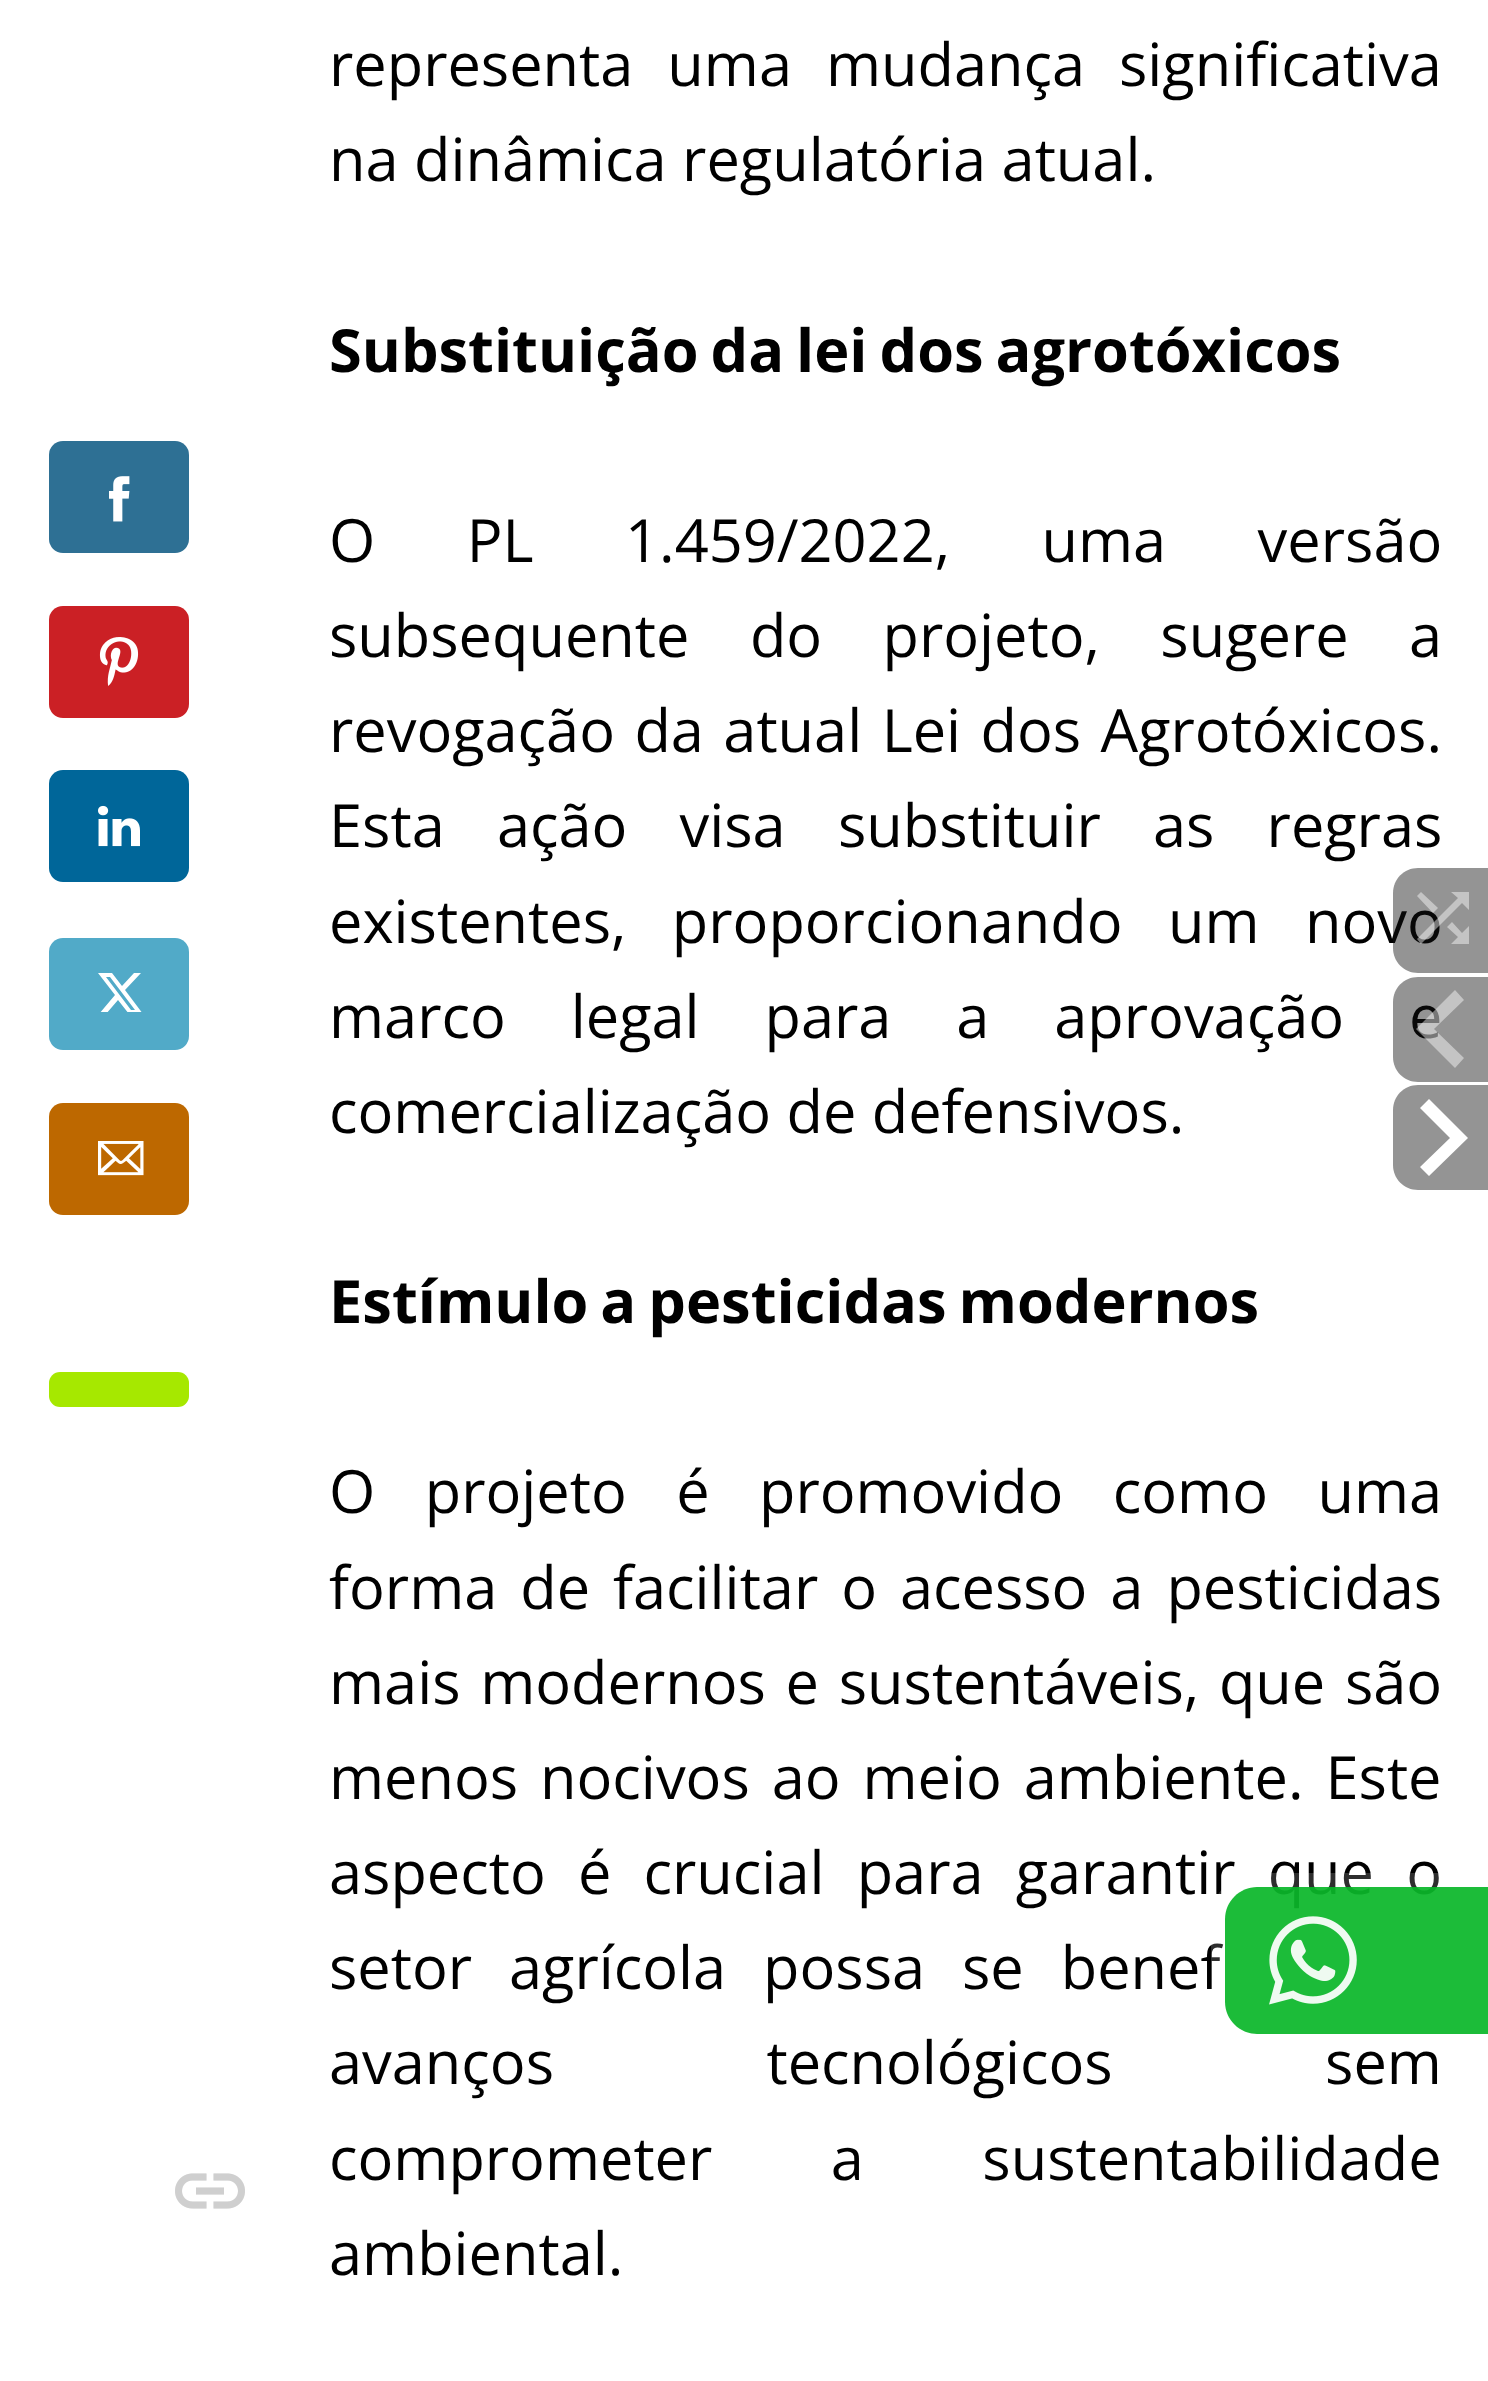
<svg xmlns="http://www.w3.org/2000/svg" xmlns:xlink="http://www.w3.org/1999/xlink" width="1488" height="2381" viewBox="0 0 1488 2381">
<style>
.cls-1{font:59.5px Open Sans;fill:#000000}
.cls-2{font:bold 59.5px Open Sans;fill:#000000}
</style>
<defs>
<clipPath id="clip1"><rect x="98" y="973" width="46" height="39"/></clipPath>
</defs>
<rect width="100%" height="100%" fill="#ffffff"/>
<image xlink:href="image0.png" x="175" y="2173" width="70" height="36"/>
<image xlink:href="image1.png" x="175" y="2174" width="70" height="35"/>
<rect fill="#2e7094" x="49" y="441" width="140" height="112" rx="14"/>
<image xlink:href="image2.png" x="109" y="476" width="21" height="46"/>
<rect fill="#cb2025" x="49" y="606" width="140" height="112" rx="14"/>
<image xlink:href="image3.png" x="99" y="637" width="40" height="49"/>
<rect fill="#006699" x="49" y="770" width="140" height="112" rx="14"/>
<image xlink:href="image4.png" x="98" y="805" width="42" height="42"/>
<rect fill="#51aac8" x="49" y="938" width="140" height="112" rx="14"/>
<g clip-path="url(#clip1)">
<path fill="#ffffff" d="M134 973H141L125 990L143 1014H129L118 1000L106 1014H99L115 995L98 973H112L122 986ZM131 1010H135L110 977H106Z"/>
</g>
<rect fill="#bd6800" x="49" y="1103" width="140" height="112" rx="14"/>
<image xlink:href="image5.png" x="98" y="1141" width="46" height="35"/>
<rect fill="#a6e800" x="49" y="1372" width="140" height="35" rx="11"/>
<path fill="#949494" d="M1418 1085H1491V1190H1418C1404 1190 1393 1179 1393 1165V1110C1393 1096 1404 1085 1418 1085Z"/>
<path fill="#ffffff" d="M1429 1099L1420 1108L1450 1138L1420 1167L1429 1176L1468 1138Z"/>
<text class="cls-1"><tspan x="329" y="86" word-spacing="18.5">representa uma mudança significativa</tspan><tspan x="329" y="181">na dinâmica regulatória atual.</tspan></text>
<text class="cls-2" x="329" y="372" word-spacing="-3.5">Substituição da lei dos agrotóxicos</text>
<text class="cls-1"><tspan x="329" y="562" word-spacing="76">O PL 1.459/2022, uma versão</tspan><tspan x="329" y="657" word-spacing="45">subsequente do projeto, sugere a</tspan><tspan x="329" y="752" word-spacing="4">revogação da atual Lei dos Agrotóxicos.</tspan><tspan x="329" y="847" word-spacing="36.75">Esta ação visa substituir as regras</tspan><tspan x="329" y="943" word-spacing="30">existentes, proporcionando um novo</tspan><tspan x="329" y="1038" word-spacing="49.5">marco legal para a aprovação e</tspan><tspan x="329" y="1133">comercialização de defensivos.</tspan></text>
<text class="cls-2" x="329" y="1323" word-spacing="-3.5">Estímulo a pesticidas modernos</text>
<text class="cls-1"><tspan x="329" y="1513" word-spacing="34">O projeto é promovido como uma</tspan><tspan x="329" y="1609" word-spacing="7.5">forma de facilitar o acesso a pesticidas</tspan><tspan x="329" y="1704" word-spacing="4.25">mais modernos e sustentáveis, que são</tspan><tspan x="329" y="1799" word-spacing="6.5">menos nocivos ao meio ambiente. Este</tspan><tspan x="329" y="1894" word-spacing="16.75">aspecto é crucial para garantir que o</tspan><tspan x="329" y="1989" word-spacing="21.5">setor agrícola possa se benef</tspan><tspan x="329" y="2084" word-spacing="197">avanços tecnológicos sem</tspan><tspan x="329" y="2180" word-spacing="103">comprometer a sustentabilidade</tspan><tspan x="329" y="2275">ambiental.</tspan></text>
<path fill="#111111" fill-opacity="0.45" d="M1418 868H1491V973H1418C1404 973 1393 962 1393 948V893C1393 879 1404 868 1418 868Z"/>
<path fill="#ffffff" fill-opacity="0.45" d="M1438 908L1421 892L1417 896L1433 913ZM1451 892L1458 898L1417 939L1421 944L1462 903L1469 910V892ZM1452 922L1447 927L1458 937L1451 944H1469V926L1462 933Z"/>
<path fill="#111111" fill-opacity="0.45" d="M1418 977H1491V1082H1418C1404 1082 1393 1071 1393 1057V1002C1393 988 1404 977 1418 977Z"/>
<path fill="#ffffff" fill-opacity="0.45" d="M1464 1000L1455 990L1416 1029L1455 1068L1464 1058L1434 1029Z"/>
<path fill="#0bb72a" fill-opacity="0.93" d="M1257 1887H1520V2034H1257C1239.5 2034 1225 2019.5 1225 2002V1919C1225 1901.5 1239.5 1887 1257 1887Z"/>
<image xlink:href="image6.png" x="1269" y="1916" width="88" height="89"/>
<path fill="none" stroke="#ffffff" stroke-opacity="0.18" stroke-width="14" d="M1257 1880H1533V2041H1257C1235.5 2041 1218 2023.5 1218 2002V1919C1218 1897.5 1235.5 1880 1257 1880Z"/>
</svg>
